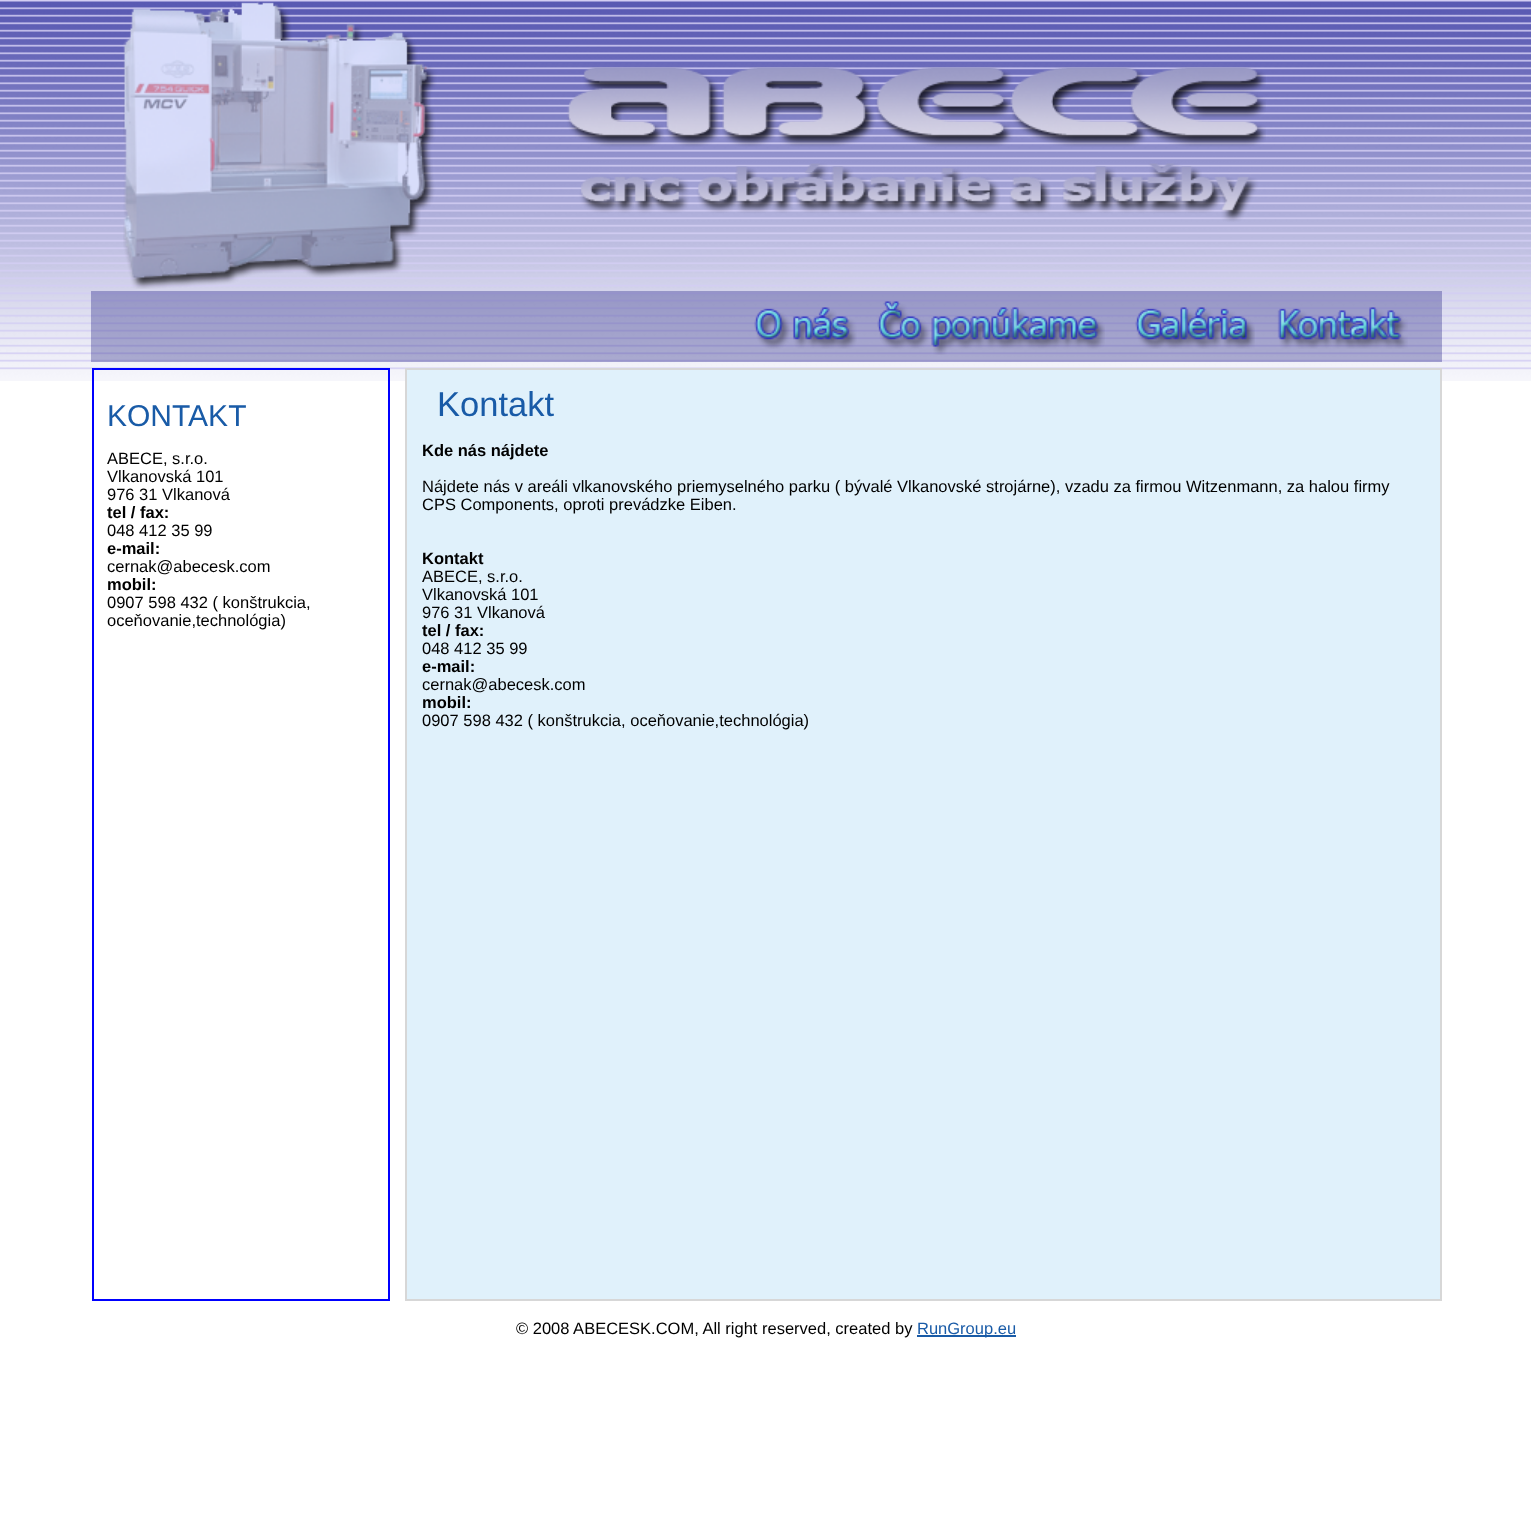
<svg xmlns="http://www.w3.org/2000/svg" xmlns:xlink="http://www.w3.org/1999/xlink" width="1531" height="1517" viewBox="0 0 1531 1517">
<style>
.cls-1{font:30px Liberation Sans;fill:#195ba7}
.cls-2{font:16.5px Liberation Sans;fill:#000000}
.cls-3{font:bold 16.5px Liberation Sans;fill:#000000}
.cls-4{font:34.5px Liberation Sans;fill:#195ba7}
.cls-5{font:16.5px Liberation Sans;fill:#195ba7}
</style>
<rect width="100%" height="100%" fill="#ffffff"/>
<image xlink:href="image0.png" x="0" y="0" width="1531" height="381"/>
<image xlink:href="image1.png" x="123" y="1" width="1143" height="288"/>
<rect fill="#070771" fill-opacity="0.3" x="91" y="291" width="1351" height="71"/>
<image xlink:href="image2.png" x="754" y="307" width="103" height="42"/>
<image xlink:href="image3.png" x="877" y="301" width="228" height="54"/>
<image xlink:href="image4.png" x="1135" y="307" width="120" height="42"/>
<image xlink:href="image5.png" x="1277" y="307" width="131" height="42"/>
<rect fill="none" stroke="#0000ff" stroke-width="2" x="93" y="369" width="296" height="931"/>
<rect fill="#e0f1fb" stroke="#d7d7d7" stroke-width="2" x="406" y="369" width="1035" height="931"/>
<rect fill="#195ba7" x="917" y="1335" width="99" height="2"/>
<text class="cls-1" x="107" y="426">KONTAKT</text>
<text class="cls-2"><tspan x="107" y="464">ABECE, s.r.o.</tspan><tspan x="107" y="482">Vlkanovská 101</tspan><tspan x="107" y="500">976 31 Vlkanová</tspan></text>
<text class="cls-3" x="107" y="518">tel / fax:</text>
<text class="cls-2" x="107" y="536">048 412 35 99</text>
<text class="cls-3" x="107" y="554">e-mail:</text>
<text class="cls-2" x="107" y="572">cernak@abecesk.com</text>
<text class="cls-3" x="107" y="590">mobil:</text>
<text class="cls-2"><tspan x="107" y="608">0907 598 432 ( konštrukcia,</tspan><tspan x="107" y="626">oceňovanie,technológia)</tspan></text>
<text class="cls-4" x="437" y="416">Kontakt</text>
<text class="cls-3" x="422" y="456">Kde nás nájdete</text>
<text class="cls-2"><tspan x="422" y="492">Nájdete nás v areáli vlkanovského priemyselného parku ( bývalé Vlkanovské strojárne), vzadu za firmou Witzenmann, za halou firmy</tspan><tspan x="422" y="510">CPS Components, oproti prevádzke Eiben.</tspan></text>
<text class="cls-3" x="422" y="564">Kontakt</text>
<text class="cls-2"><tspan x="422" y="582">ABECE, s.r.o.</tspan><tspan x="422" y="600">Vlkanovská 101</tspan><tspan x="422" y="618">976 31 Vlkanová</tspan></text>
<text class="cls-3" x="422" y="636">tel / fax:</text>
<text class="cls-2" x="422" y="654">048 412 35 99</text>
<text class="cls-3" x="422" y="672">e-mail:</text>
<text class="cls-2" x="422" y="690">cernak@abecesk.com</text>
<text class="cls-3" x="422" y="708">mobil:</text>
<text class="cls-2" x="422" y="726">0907 598 432 ( konštrukcia, oceňovanie,technológia)</text>
<text class="cls-2" x="516" y="1334">© 2008 ABECESK.COM, All right reserved, created by</text>
<text class="cls-5" x="917" y="1334">RunGroup.eu</text>
</svg>
